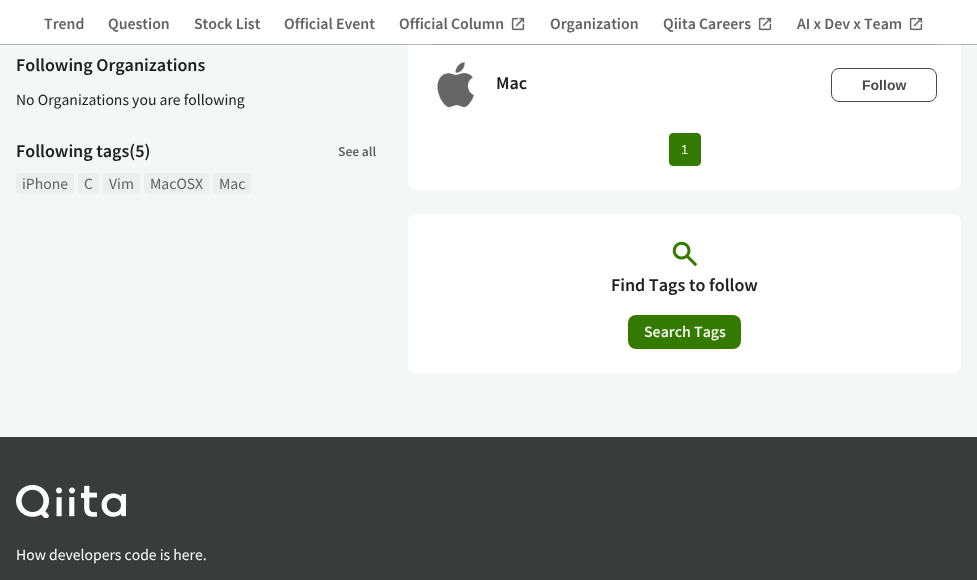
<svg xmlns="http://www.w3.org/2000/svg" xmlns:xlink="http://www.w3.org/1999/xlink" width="977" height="580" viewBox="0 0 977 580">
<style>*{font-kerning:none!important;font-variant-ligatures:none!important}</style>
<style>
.cls-1{font:600 14px Noto Sans JP;fill:#626262}
.cls-2{font:600 16px Noto Sans JP;fill:#202020}
.cls-3{font:14px Noto Sans JP;fill:#202020}
.cls-4{font:600 12px Noto Sans JP;fill:#626262}
.cls-5{font:14px Noto Sans JP;fill:#626262}
.cls-6{font:bold 14px Liberation Sans;fill:#494b4b}
.cls-7{font:13px Liberation Sans;fill:#eff4eb}
.cls-8{font:600 14px Noto Sans JP;fill:#eff4eb}
.cls-9{font:14px Noto Sans JP;fill:#ffffff}
</style>
<rect width="100%" height="100%" fill="#f5f6f6"/>
<rect fill="#ffffff" x="408" y="-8" width="553" height="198" rx="8"/>
<rect fill="#e0e0e0" x="432" y="44" width="505" height="1"/>
<rect fill="none" stroke="#000000" stroke-opacity="0.08" x="-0.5" y="-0.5" width="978" height="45"/>
<rect fill="#1e2121" fill-opacity="0.25" filter="blur(0.5px)" x="0" y="-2" width="977" height="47"/>
<rect fill="#ffffff" x="0" y="0" width="977" height="44"/>
<image xlink:href="image0.png" x="511" y="17" width="14" height="14"/>
<image xlink:href="image0.png" x="758" y="17" width="14" height="14"/>
<image xlink:href="image0.png" x="909" y="17" width="14" height="14"/>
<rect fill="#edeeee" x="16" y="173" width="58" height="21" rx="4"/>
<rect fill="#edeeee" x="78" y="173" width="21" height="21" rx="4"/>
<rect fill="#edeeee" x="103" y="173" width="37" height="21" rx="4"/>
<rect fill="#edeeee" x="144" y="173" width="65" height="21" rx="4"/>
<rect fill="#edeeee" x="213" y="173" width="38" height="21" rx="4"/>
<image xlink:href="image1.png" x="437" y="61" width="37" height="47"/>
<rect fill="none" stroke="#494b4b" x="831.5" y="68.5" width="105" height="33" rx="7.5"/>
<rect fill="#357a00" stroke="#357a00" x="669.5" y="133.5" width="31" height="32" rx="3.5"/>
<rect fill="#ffffff" x="408" y="214" width="553" height="159" rx="8"/>
<image xlink:href="image2.png" x="672" y="241" width="26" height="26"/>
<rect fill="#357a00" x="628" y="315" width="113" height="34" rx="8"/>
<rect fill="#3a3c3c" x="0" y="437" width="977" height="143"/>
<image xlink:href="image3.png" x="16" y="485" width="110" height="33"/>
<text class="cls-1" x="44" y="29">Trend</text>
<text class="cls-1" x="108" y="29">Question</text>
<text class="cls-1" x="194" y="29">Stock List</text>
<text class="cls-1" x="284" y="29">Official Event</text>
<text class="cls-1" x="399" y="29">Official Column</text>
<text class="cls-1" x="550" y="29">Organization</text>
<text class="cls-1" x="663" y="29">Qiita Careers</text>
<text class="cls-1" x="797" y="29">AI x Dev x Team</text>
<text class="cls-2" x="16" y="71">Following Organizations</text>
<text class="cls-3" x="16" y="105">No Organizations you are following</text>
<text class="cls-2" x="16" y="157">Following tags(5)</text>
<text class="cls-4" x="338" y="156">See all</text>
<text class="cls-5" x="22" y="189">iPhone</text>
<text class="cls-5" x="84" y="189">C</text>
<text class="cls-5" x="109" y="189">Vim</text>
<text class="cls-5" x="150" y="189">MacOSX</text>
<text class="cls-5" x="219" y="189">Mac</text>
<text class="cls-2" x="496" y="89">Mac</text>
<text class="cls-6" x="862" y="90">Follow</text>
<text class="cls-7" x="681" y="154">1</text>
<text class="cls-2" x="611" y="291">Find Tags to follow</text>
<text class="cls-8" x="644" y="337">Search Tags</text>
<text class="cls-9" x="16" y="560">How developers code is here.</text>
</svg>
